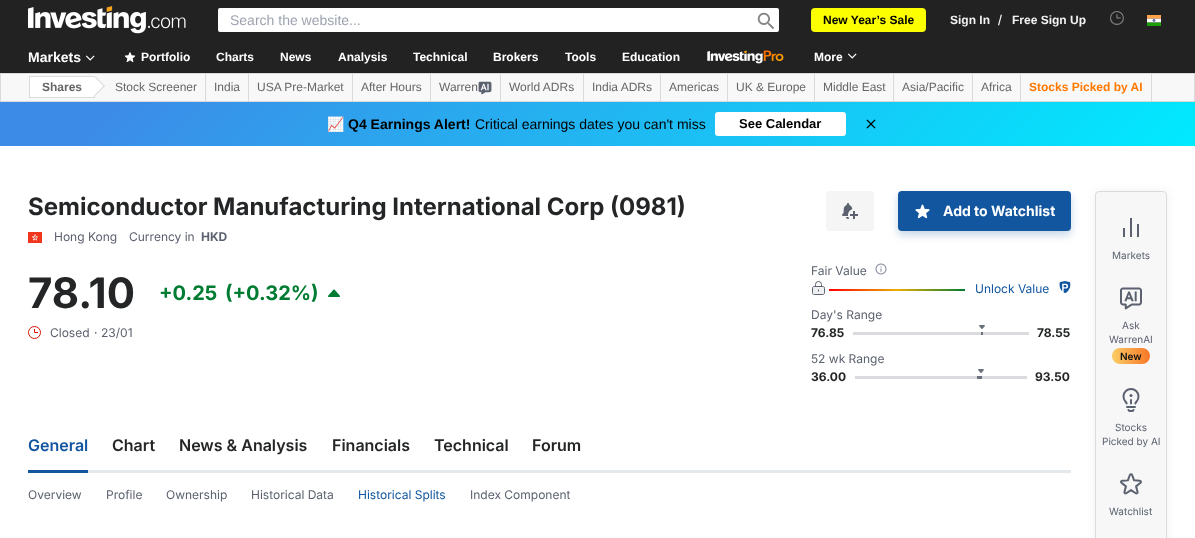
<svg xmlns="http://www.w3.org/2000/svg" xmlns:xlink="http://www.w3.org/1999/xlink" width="1195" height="538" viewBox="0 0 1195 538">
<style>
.cls-1{font:14px Liberation Sans;fill:#9ca3af}
.cls-2{font:bold 12px Liberation Sans;fill:#000000}
.cls-3{font:bold 12px Liberation Sans;fill:#f2f2f2}
.cls-4{font:14px Liberation Sans;fill:#ffffff}
.cls-5{font:bold 14px Liberation Sans;fill:#ffffff}
.cls-6{font:bold 12px Liberation Sans;fill:#ffffff}
.cls-7{font:bold 12px Liberation Sans;fill:#666666}
.cls-8{font:12px Liberation Sans;fill:#666666}
.cls-9{font:bold 12px Liberation Sans;fill:#ff7901}
.cls-10{font:14px Noto Color Emoji;fill:#000000}
.cls-11{font:bold 14px Liberation Sans;fill:#000000}
.cls-12{font:14px Liberation Sans;fill:#000000}
.cls-13{font:bold 13px Liberation Sans;fill:#000000}
.cls-14{font:bold 24px Inter;fill:#232526}
.cls-15{font:12px Inter;fill:#5b616e}
.cls-16{font:bold 12px Inter;fill:#5b616e}
.cls-17{font:bold 14px Inter;fill:#ffffff}
.cls-18{font:bold 42px Inter;fill:#232526}
.cls-19{font:bold 20px Inter;fill:#007c32}
.cls-20{font:12px Inter;fill:#1256a0}
.cls-21{font:bold 12px Inter;fill:#232526}
.cls-22{font:600 16px Inter;fill:#1256a0}
.cls-23{font:600 16px Inter;fill:#232526}
.cls-24{font:10px Inter;fill:#5b616e}
.cls-25{font:600 10px Inter;fill:#111111}
</style>
<defs>
<linearGradient id="g1" gradientUnits="userSpaceOnUse" x1="288" y1="-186" x2="907" y2="434"><stop offset="0.1" stop-color="#3c8ce7"/><stop offset="1" stop-color="#00eaff"/></linearGradient>
<linearGradient id="g2" gradientUnits="userSpaceOnUse" x1="829" y1="290" x2="965" y2="290"><stop offset="0" stop-color="#ff0000"/><stop offset="0.5" stop-color="#ebae04"/><stop offset="1" stop-color="#007c32"/></linearGradient>
<linearGradient id="g3" gradientUnits="userSpaceOnUse" x1="1112" y1="357" x2="1156" y2="354"><stop offset="0.07" stop-color="#fac761"/><stop offset="1" stop-color="#f7681c"/></linearGradient>
</defs>
<rect width="100%" height="100%" fill="#ffffff"/>
<rect fill="#222222" x="0" y="0" width="1195" height="73"/>
<image xlink:href="image0.png" x="28" y="6" width="158" height="28"/>
<rect fill="#ffffff" x="218" y="8" width="561" height="24" rx="2"/>
<image xlink:href="image1.png" x="757" y="12" width="18" height="18"/>
<rect fill="#fbff00" x="811" y="8" width="115" height="24" rx="4"/>
<image xlink:href="image2.png" x="1110" y="11" width="14" height="14"/>
<image xlink:href="image3.png" x="1147" y="15" width="14" height="11"/>
<image xlink:href="image4.png" x="86" y="55" width="9" height="6"/>
<image xlink:href="image5.png" x="124" y="52" width="12" height="10"/>
<image xlink:href="image6.png" x="707" y="50" width="77" height="14"/>
<image xlink:href="image4.png" x="848" y="53" width="9" height="6"/>
<rect fill="#000000" fill-opacity="0.2" filter="blur(1.5px)" x="0" y="74" width="1195" height="29"/>
<rect fill="#f8f8f8" stroke="#dadada" x="0.5" y="73.5" width="1194" height="28"/>
<rect fill="#ffffff" stroke="#dadada" x="29.5" y="76.5" width="65" height="21"/>
<path fill="#ffffff" d="M95 76L105 86L95 96L85 86Z"/>
<path fill="#dadada" d="M95 76L105 86L104 86.5L94.5 77Z"/>
<path fill="#dadada" d="M104 85.5L105 86L95 96L94.5 95Z"/>
<rect fill="#dadada" x="205" y="74" width="1" height="27"/>
<rect fill="#dadada" x="248" y="74" width="1" height="27"/>
<rect fill="#dadada" x="352" y="74" width="1" height="27"/>
<rect fill="#dadada" x="430" y="74" width="1" height="27"/>
<rect fill="#dadada" x="500" y="74" width="1" height="27"/>
<image xlink:href="image7.png" x="478" y="81" width="14" height="14"/>
<rect fill="#dadada" x="583" y="74" width="1" height="27"/>
<rect fill="#dadada" x="660" y="74" width="1" height="27"/>
<rect fill="#dadada" x="727" y="74" width="1" height="27"/>
<rect fill="#dadada" x="814" y="74" width="1" height="27"/>
<rect fill="#dadada" x="893" y="74" width="1" height="27"/>
<rect fill="#dadada" x="972" y="74" width="1" height="27"/>
<rect fill="#dadada" x="1020" y="74" width="1" height="27"/>
<rect fill="#dadada" x="1151" y="74" width="1" height="27"/>
<rect fill="url(#g1)" x="0" y="102" width="1195" height="44"/>
<rect fill="#ffffff" x="715" y="112" width="131" height="24" rx="3"/>
<image xlink:href="image8.png" x="866" y="119" width="10" height="10"/>
<image xlink:href="image9.png" x="28" y="232" width="14" height="11"/>
<rect fill="#f5f5f5" x="826" y="191" width="48" height="40" rx="4"/>
<image xlink:href="image10.png" x="842" y="203" width="16" height="16"/>
<rect fill="#1256a0" fill-opacity="0.25" filter="blur(4px)" x="898" y="195" width="173" height="40" rx="4"/>
<rect fill="#1256a0" x="898" y="191" width="173" height="40" rx="4"/>
<image xlink:href="image11.png" x="915" y="204" width="15" height="15"/>
<image xlink:href="image12.png" x="328" y="289" width="12" height="8"/>
<image xlink:href="image13.png" x="28" y="326" width="13" height="13"/>
<image xlink:href="image14.png" x="875" y="263" width="12" height="12"/>
<image xlink:href="image15.png" x="812" y="281" width="13" height="14"/>
<rect fill="url(#g2)" x="829" y="289" width="136" height="2"/>
<image xlink:href="image16.png" x="1059" y="281" width="12" height="12"/>
<rect fill="#dadbde" x="853" y="332" width="176" height="3"/>
<image xlink:href="image17.png" x="979" y="325" width="6" height="4"/>
<rect fill="#6a707c" x="981" y="332" width="2" height="3"/>
<rect fill="#dadbde" x="855" y="376" width="172" height="3"/>
<image xlink:href="image17.png" x="978" y="369" width="6" height="4"/>
<rect fill="#6a707c" x="977" y="376" width="5" height="3"/>
<rect fill="#e6e9eb" x="88" y="470" width="983" height="3"/>
<rect fill="#1256a0" x="28" y="470" width="60" height="3"/>
<rect fill="#232526" fill-opacity="0.07" filter="blur(4px)" x="1095" y="191" width="72" height="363" rx="4"/>
<rect fill="#f7f7f8" stroke="#d9dcdf" x="1095.5" y="191.5" width="71" height="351" rx="3.5"/>
<image xlink:href="image18.png" x="1123" y="218" width="16" height="19"/>
<image xlink:href="image19.png" x="1120" y="287" width="22" height="23"/>
<rect fill="url(#g3)" x="1112" y="348" width="38" height="16" rx="8"/>
<image xlink:href="image20.png" x="1122" y="388" width="18" height="24"/>
<image xlink:href="image21.png" x="1120" y="473" width="22" height="22"/>
<text class="cls-1" x="230" y="25">Search the website...</text>
<text class="cls-2" x="823" y="24">New Year’s Sale</text>
<text class="cls-3" x="950" y="24">Sign In</text>
<text class="cls-4" x="998" y="25">/</text>
<text class="cls-3" x="1012" y="24">Free Sign Up</text>
<text class="cls-5" x="28" y="62">Markets</text>
<text class="cls-6" x="141" y="61">Portfolio</text>
<text class="cls-6" x="216" y="61">Charts</text>
<text class="cls-6" x="280" y="61">News</text>
<text class="cls-6" x="338" y="61">Analysis</text>
<text class="cls-6" x="413" y="61">Technical</text>
<text class="cls-6" x="493" y="61">Brokers</text>
<text class="cls-6" x="565" y="61">Tools</text>
<text class="cls-6" x="622" y="61">Education</text>
<text class="cls-6" x="814" y="61">More</text>
<text class="cls-7" x="42" y="91">Shares</text>
<text class="cls-8" x="115" y="91">Stock Screener</text>
<text class="cls-8" x="214" y="91">India</text>
<text class="cls-8" x="257" y="91">USA Pre-Market</text>
<text class="cls-8" x="361" y="91">After Hours</text>
<text class="cls-8" x="439" y="91">Warren</text>
<text class="cls-8" x="509" y="91">World ADRs</text>
<text class="cls-8" x="592" y="91">India ADRs</text>
<text class="cls-8" x="669" y="91">Americas</text>
<text class="cls-8" x="736" y="91">UK &amp; Europe</text>
<text class="cls-8" x="823" y="91">Middle East</text>
<text class="cls-8" x="902" y="91">Asia/Pacific</text>
<text class="cls-8" x="981" y="91">Africa</text>
<text class="cls-9" x="1029" y="91">Stocks Picked by AI</text>
<text class="cls-10" x="327" y="129">📈</text>
<text class="cls-11" x="348" y="129">Q4 Earnings Alert!</text>
<text class="cls-12" x="475" y="129">Critical earnings dates you can't miss</text>
<text class="cls-13" x="739" y="128">See Calendar</text>
<text class="cls-14" x="28" y="215">Semiconductor Manufacturing International Corp (0981)</text>
<text class="cls-15" x="54" y="241">Hong Kong</text>
<text class="cls-15" x="129" y="241">Currency in</text>
<text class="cls-16" x="201" y="241">HKD</text>
<text class="cls-17" x="943" y="216">Add to Watchlist</text>
<text class="cls-18" x="28" y="308">78.10</text>
<text class="cls-19" x="159" y="300">+0.25</text>
<text class="cls-19" x="225" y="300">(+0.32%)</text>
<text class="cls-15" x="50" y="337">Closed</text>
<text class="cls-15" x="94" y="337">·</text>
<text class="cls-15" x="101" y="337">23/01</text>
<text class="cls-15" x="811" y="275">Fair Value</text>
<text class="cls-20" x="975" y="293">Unlock Value</text>
<text class="cls-15" x="811" y="319">Day's Range</text>
<text class="cls-21" x="811" y="337">76.85</text>
<text class="cls-21" x="1037" y="337">78.55</text>
<text class="cls-15" x="811" y="363">52 wk Range</text>
<text class="cls-21" x="811" y="381">36.00</text>
<text class="cls-21" x="1035" y="381">93.50</text>
<text class="cls-22" x="28" y="451">General</text>
<text class="cls-23" x="112" y="451">Chart</text>
<text class="cls-23" x="179" y="451">News &amp; Analysis</text>
<text class="cls-23" x="332" y="451">Financials</text>
<text class="cls-23" x="434" y="451">Technical</text>
<text class="cls-23" x="532" y="451">Forum</text>
<text class="cls-15" x="28" y="499">Overview</text>
<text class="cls-15" x="106" y="499">Profile</text>
<text class="cls-15" x="166" y="499">Ownership</text>
<text class="cls-15" x="251" y="499">Historical Data</text>
<text class="cls-20" x="358" y="499">Historical Splits</text>
<text class="cls-15" x="470" y="499">Index Component</text>
<text class="cls-24" x="1112" y="259">Markets</text>
<text class="cls-24" x="1122" y="329">Ask</text>
<text class="cls-24" x="1109" y="343">WarrenAI</text>
<text class="cls-25" x="1120" y="360">New</text>
<text class="cls-24" x="1115" y="431">Stocks</text>
<text class="cls-24" x="1102" y="445">Picked by AI</text>
<text class="cls-24" x="1109" y="515">Watchlist</text>
</svg>
